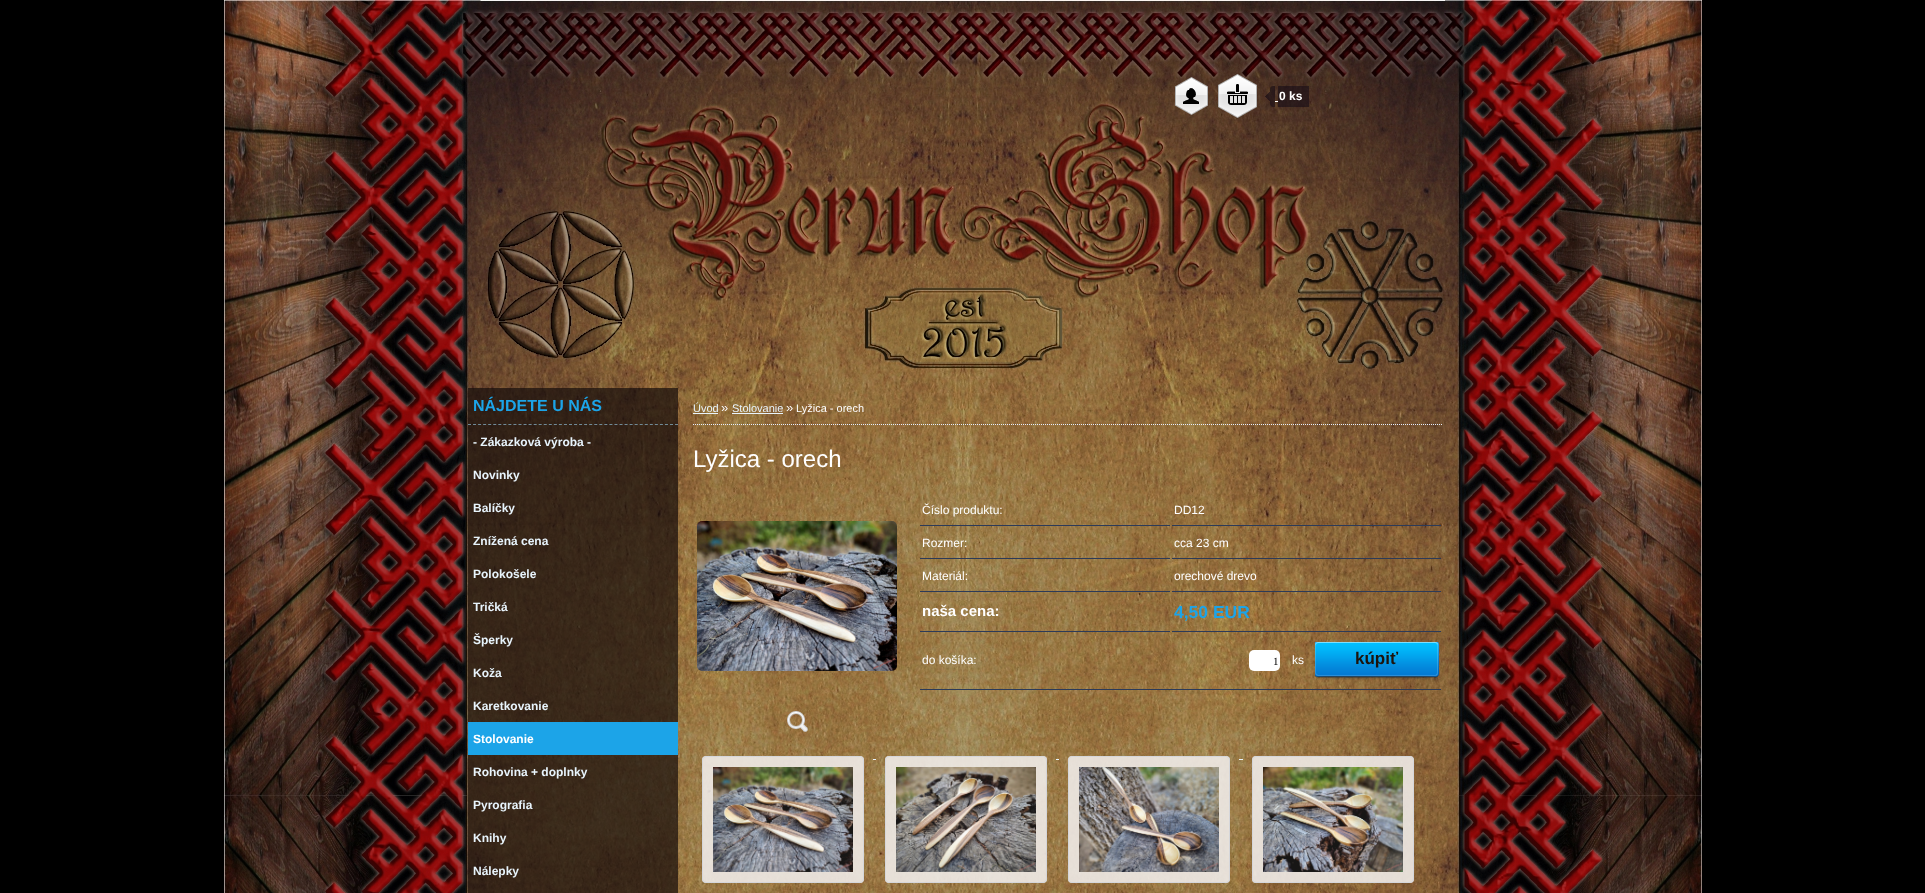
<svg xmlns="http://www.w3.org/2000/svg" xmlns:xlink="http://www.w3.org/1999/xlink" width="1925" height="893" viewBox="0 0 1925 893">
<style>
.cls-1{font:bold 12px Liberation Sans;fill:#ffffff}
.cls-2{font:bold 16px Liberation Sans;fill:#1ca4e8}
.cls-3{font:bold 12px Liberation Sans;fill:#e8f4fc}
.cls-4{font:11px Liberation Sans;fill:#e8f4fc}
.cls-5{font:13px Liberation Sans;fill:#ffffff}
.cls-6{font:11px Liberation Sans;fill:#ffffff}
.cls-7{font:24px Liberation Sans;fill:#ffffff}
.cls-8{font:12px Liberation Sans;fill:#ffffff}
.cls-9{font:bold 15px Liberation Sans;fill:#ffffff}
.cls-10{font:bold 17.5px Liberation Sans;fill:#1ca4e8}
.cls-11{font:11px Liberation Serif;fill:#000000}
.cls-12{font:bold 17px Liberation Sans;fill:#1d130b}
</style>
<rect width="100%" height="100%" fill="#000000"/>
<image xlink:href="image0.png" x="224" y="0" width="1478" height="893"/>
<image xlink:href="image1.png" x="1175" y="77" width="33" height="38"/>
<image xlink:href="image2.png" x="1218" y="74" width="39" height="44"/>
<image xlink:href="image3.png" x="1265" y="86" width="10" height="21"/>
<rect fill="#160c16" fill-opacity="0.6" x="1278" y="86" width="31" height="21"/>
<rect fill="#ffffff" x="1275" y="101" width="3" height="1"/>
<rect fill="#150d0b" fill-opacity="0.7" x="468" y="388" width="210" height="505"/>
<path fill="none" stroke="#718b98" stroke-dasharray="3 2.05" d="M468 424.5H678"/>
<rect fill="#1ca4e8" x="468" y="722" width="210" height="33"/>
<path fill="none" stroke="#e5efff" stroke-dasharray="1 1" d="M693 424.5H1443"/>
<rect fill="#e8f4fc" x="693" y="413" width="25" height="1"/>
<rect fill="#e8f4fc" x="732" y="413" width="51" height="1"/>
<image xlink:href="image4.png" x="697" y="521" width="200" height="150"/>
<image xlink:href="image5.png" x="787" y="711" width="21" height="21"/>
<rect fill="#2c3a58" x="920" y="525" width="250" height="1"/>
<rect fill="#2c3a58" x="1172" y="525" width="269" height="1"/>
<rect fill="#2c3a58" x="920" y="558" width="250" height="1"/>
<rect fill="#2c3a58" x="1172" y="558" width="269" height="1"/>
<rect fill="#2c3a58" x="920" y="591" width="250" height="1"/>
<rect fill="#2c3a58" x="1172" y="591" width="269" height="1"/>
<rect fill="#2c3a58" x="920" y="631" width="250" height="1"/>
<rect fill="#2c3a58" x="1172" y="631" width="269" height="1"/>
<rect fill="#2c3a58" x="920" y="689" width="521" height="1"/>
<rect fill="#ffffff" x="1249" y="650" width="31" height="21" rx="5"/>
<image xlink:href="image6.png" x="1315" y="642" width="124" height="38"/>
<rect fill="#f0ebe8" fill-opacity="0.9" x="702" y="756" width="162" height="127" rx="4"/>
<rect fill="none" stroke="#d3d5da" stroke-opacity="0.9" x="702.5" y="756.5" width="161" height="126" rx="3.5"/>
<rect fill="#f0ebe8" fill-opacity="0.9" x="885" y="756" width="162" height="127" rx="4"/>
<rect fill="none" stroke="#d3d5da" stroke-opacity="0.9" x="885.5" y="756.5" width="161" height="126" rx="3.5"/>
<rect fill="#f0ebe8" fill-opacity="0.9" x="1068" y="756" width="162" height="127" rx="4"/>
<rect fill="none" stroke="#d3d5da" stroke-opacity="0.9" x="1068.5" y="756.5" width="161" height="126" rx="3.5"/>
<rect fill="#f0ebe8" fill-opacity="0.9" x="1252" y="756" width="162" height="127" rx="4"/>
<rect fill="#e8f4fc" x="873" y="759" width="3" height="1"/>
<rect fill="#e8f4fc" x="1056" y="759" width="3" height="1"/>
<rect fill="#e8f4fc" x="1239" y="759" width="4" height="1"/>
<rect fill="none" stroke="#d3d5da" stroke-opacity="0.9" x="1252.5" y="756.5" width="161" height="126" rx="3.5"/>
<image xlink:href="image7.png" x="713" y="767" width="140" height="105"/>
<image xlink:href="image8.png" x="896" y="767" width="140" height="105"/>
<image xlink:href="image9.png" x="1079" y="767" width="140" height="105"/>
<image xlink:href="image10.png" x="1263" y="767" width="140" height="105"/>
<text class="cls-1" x="1279" y="100">0 ks</text>
<text class="cls-2" x="473" y="411">NÁJDETE U NÁS</text>
<text class="cls-3" x="473" y="446">- Zákazková výroba -</text>
<text class="cls-3" x="473" y="479">Novinky</text>
<text class="cls-3" x="473" y="512">Balíčky</text>
<text class="cls-3" x="473" y="545">Znížená cena</text>
<text class="cls-3" x="473" y="578">Polokošele</text>
<text class="cls-3" x="473" y="611">Tričká</text>
<text class="cls-3" x="473" y="644">Šperky</text>
<text class="cls-3" x="473" y="677">Koža</text>
<text class="cls-3" x="473" y="710">Karetkovanie</text>
<text class="cls-1" x="473" y="743">Stolovanie</text>
<text class="cls-3" x="473" y="776">Rohovina + doplnky</text>
<text class="cls-3" x="473" y="809">Pyrografia</text>
<text class="cls-3" x="473" y="842">Knihy</text>
<text class="cls-3" x="473" y="875">Nálepky</text>
<text class="cls-4" x="693" y="412">Úvod</text>
<text class="cls-5" x="721" y="412">»</text>
<text class="cls-4" x="732" y="412">Stolovanie</text>
<text class="cls-5" x="786" y="412">»</text>
<text class="cls-6" x="796" y="412">Lyžica - orech</text>
<text class="cls-7" x="693" y="467">Lyžica - orech</text>
<text class="cls-8" x="922" y="514">Číslo produktu:</text>
<text class="cls-8" x="1174" y="514">DD12</text>
<text class="cls-8" x="922" y="547">Rozmer:</text>
<text class="cls-8" x="1174" y="547">cca 23 cm</text>
<text class="cls-8" x="922" y="580">Materiál:</text>
<text class="cls-8" x="1174" y="580">orechové drevo</text>
<text class="cls-9" x="922" y="616">naša cena:</text>
<text class="cls-10" x="1174" y="618">4,50 EUR</text>
<text class="cls-8" x="922" y="664">do košíka:</text>
<text class="cls-11" x="1273" y="665">1</text>
<text class="cls-8" x="1292" y="664">ks</text>
<text class="cls-12" x="1355" y="664">kúpiť</text>
</svg>
